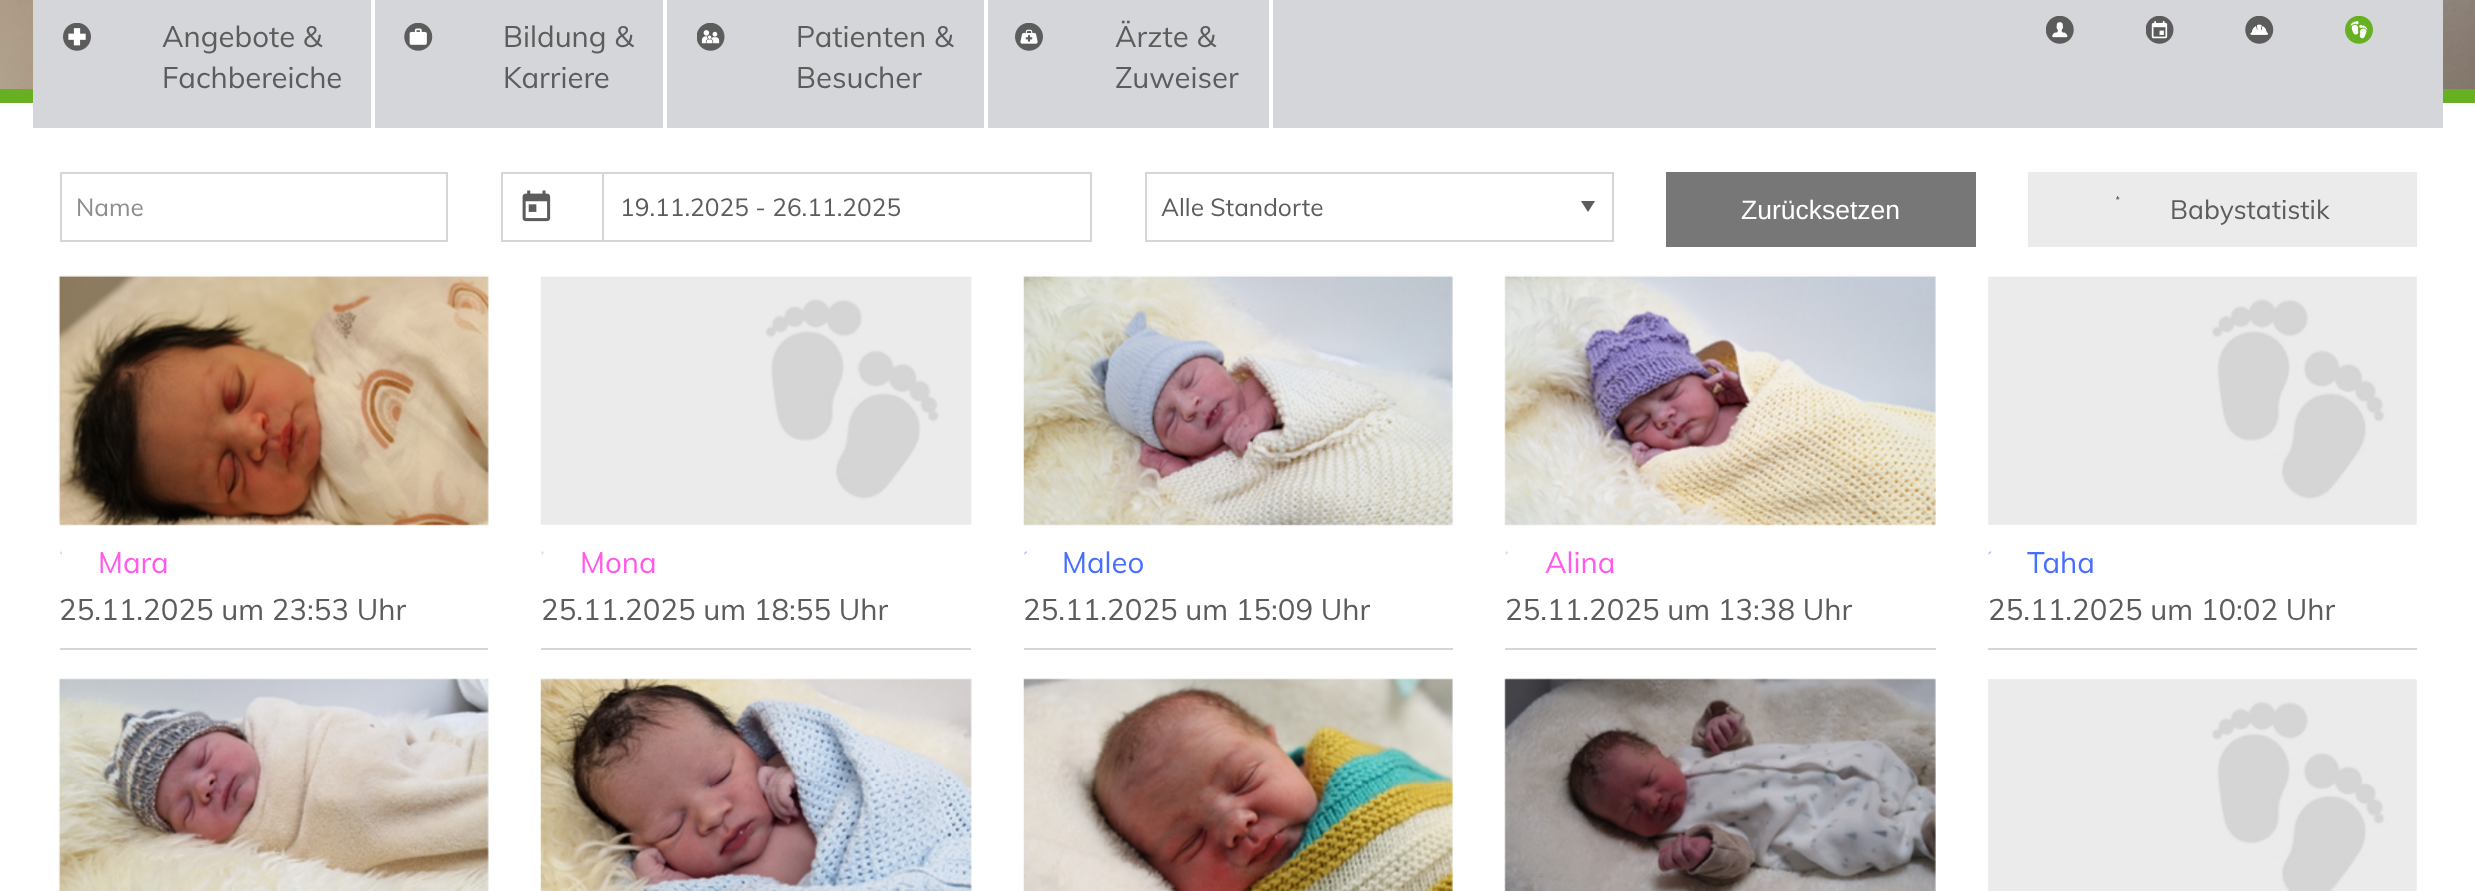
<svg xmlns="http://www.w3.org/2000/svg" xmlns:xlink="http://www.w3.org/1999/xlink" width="2475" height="891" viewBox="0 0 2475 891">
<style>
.cls-1{font:29.4px Muli;fill:#5c5c5d}
.cls-2{font:24.5px Muli;fill:#8d8d8e}
.cls-3{font:24.5px Muli;fill:#5c5c5d}
.cls-4{font:26.5px Liberation Sans;fill:#ffffff}
.cls-5{font:26.5px Muli;fill:#5c5c5d}
.cls-6{font:29.4px Muli;fill:#ff5ae9}
.cls-7{font:29.4px Muli;fill:#466eff}
</style>
<rect width="100%" height="100%" fill="#ffffff"/>
<image xlink:href="image0.png" x="0" y="0" width="2475" height="89"/>
<rect fill="#67b021" x="0" y="89" width="2475" height="14"/>
<rect fill="#d5d6da" x="33" y="0" width="2410" height="128"/>
<image xlink:href="image1.png" x="63" y="23" width="28" height="28"/>
<rect fill="#ffffff" x="371" y="0" width="4" height="128"/>
<image xlink:href="image2.png" x="404" y="23" width="29" height="28"/>
<rect fill="#ffffff" x="663" y="0" width="4" height="128"/>
<image xlink:href="image3.png" x="697" y="23" width="28" height="28"/>
<rect fill="#ffffff" x="1269" y="0" width="4" height="128"/>
<rect fill="#ffffff" x="984" y="0" width="4" height="128"/>
<image xlink:href="image4.png" x="1015" y="23" width="28" height="28"/>
<image xlink:href="image5.png" x="2046" y="16" width="28" height="28"/>
<image xlink:href="image6.png" x="2146" y="16" width="28" height="28"/>
<image xlink:href="image7.png" x="2245" y="16" width="29" height="28"/>
<image xlink:href="image8.png" x="2345" y="16" width="28" height="28"/>
<rect fill="none" stroke="#d5d6da" stroke-width="2" x="61" y="173" width="386" height="68"/>
<rect fill="#d5d6da" x="501" y="172" width="101" height="2"/>
<rect fill="#d5d6da" x="501" y="240" width="101" height="2"/>
<rect fill="#d5d6da" x="501" y="172" width="2" height="70"/>
<image xlink:href="image9.png" x="522" y="190" width="29" height="32"/>
<rect fill="none" stroke="#d5d6da" stroke-width="2" x="603" y="173" width="488" height="68"/>
<path fill="#5c5c5d" d="M1581 201H1595L1588 212Z"/>
<rect fill="none" stroke="#d5d6da" stroke-width="2" x="1146" y="173" width="467" height="68"/>
<rect fill="#777777" x="1666" y="172" width="310" height="75"/>
<rect fill="#ebebeb" x="2028" y="172" width="389" height="75"/>
<image xlink:href="image10.png" x="2116" y="196" width="4" height="4"/>
<rect fill="#d5d6da" x="60" y="648" width="428" height="2"/>
<image xlink:href="image11.png" x="58" y="275" width="431" height="251"/>
<image xlink:href="image12.png" x="60" y="551" width="2" height="4"/>
<rect fill="#d5d6da" x="541" y="648" width="430" height="2"/>
<image xlink:href="image13.png" x="540" y="276" width="432" height="249"/>
<image xlink:href="image14.png" x="541" y="551" width="3" height="4"/>
<rect fill="#d5d6da" x="1024" y="648" width="429" height="2"/>
<image xlink:href="image15.png" x="1023" y="275" width="430" height="251"/>
<image xlink:href="image16.png" x="1024" y="551" width="3" height="4"/>
<rect fill="#d5d6da" x="1505" y="648" width="431" height="2"/>
<image xlink:href="image17.png" x="1504" y="275" width="432" height="251"/>
<image xlink:href="image18.png" x="1505" y="551" width="3" height="4"/>
<rect fill="#d5d6da" x="1988" y="648" width="429" height="2"/>
<image xlink:href="image19.png" x="1988" y="276" width="429" height="249"/>
<image xlink:href="image20.png" x="1988" y="551" width="3" height="4"/>
<image xlink:href="image21.png" x="58" y="678" width="431" height="213"/>
<image xlink:href="image22.png" x="540" y="678" width="432" height="213"/>
<image xlink:href="image23.png" x="1023" y="678" width="430" height="213"/>
<image xlink:href="image24.png" x="1504" y="678" width="432" height="213"/>
<image xlink:href="image25.png" x="1988" y="679" width="429" height="212"/>
<text class="cls-1"><tspan x="162" y="47">Angebote &amp;</tspan><tspan x="162" y="88">Fachbereiche</tspan></text>
<text class="cls-1"><tspan x="503" y="47">Bildung &amp;</tspan><tspan x="503" y="88">Karriere</tspan></text>
<text class="cls-1"><tspan x="796" y="47">Patienten &amp;</tspan><tspan x="796" y="88">Besucher</tspan></text>
<text class="cls-1"><tspan x="1115" y="47">Ärzte &amp;</tspan><tspan x="1115" y="88">Zuweiser</tspan></text>
<text class="cls-2" x="76" y="216">Name</text>
<text class="cls-3" x="620" y="216">19.11.2025 - 26.11.2025</text>
<text class="cls-3" x="1161" y="216">Alle Standorte</text>
<text class="cls-4" x="1741" y="219">Zurücksetzen</text>
<text class="cls-5" x="2170" y="219">Babystatistik</text>
<text class="cls-6" x="98" y="573">Mara</text>
<text class="cls-1" x="59" y="620">25.11.2025 um 23:53 Uhr</text>
<text class="cls-6" x="580" y="573">Mona</text>
<text class="cls-1" x="541" y="620">25.11.2025 um 18:55 Uhr</text>
<text class="cls-7" x="1062" y="573">Maleo</text>
<text class="cls-1" x="1023" y="620">25.11.2025 um 15:09 Uhr</text>
<text class="cls-6" x="1545" y="573">Alina</text>
<text class="cls-1" x="1505" y="620">25.11.2025 um 13:38 Uhr</text>
<text class="cls-7" x="2027" y="573">Taha</text>
<text class="cls-1" x="1988" y="620">25.11.2025 um 10:02 Uhr</text>
</svg>
